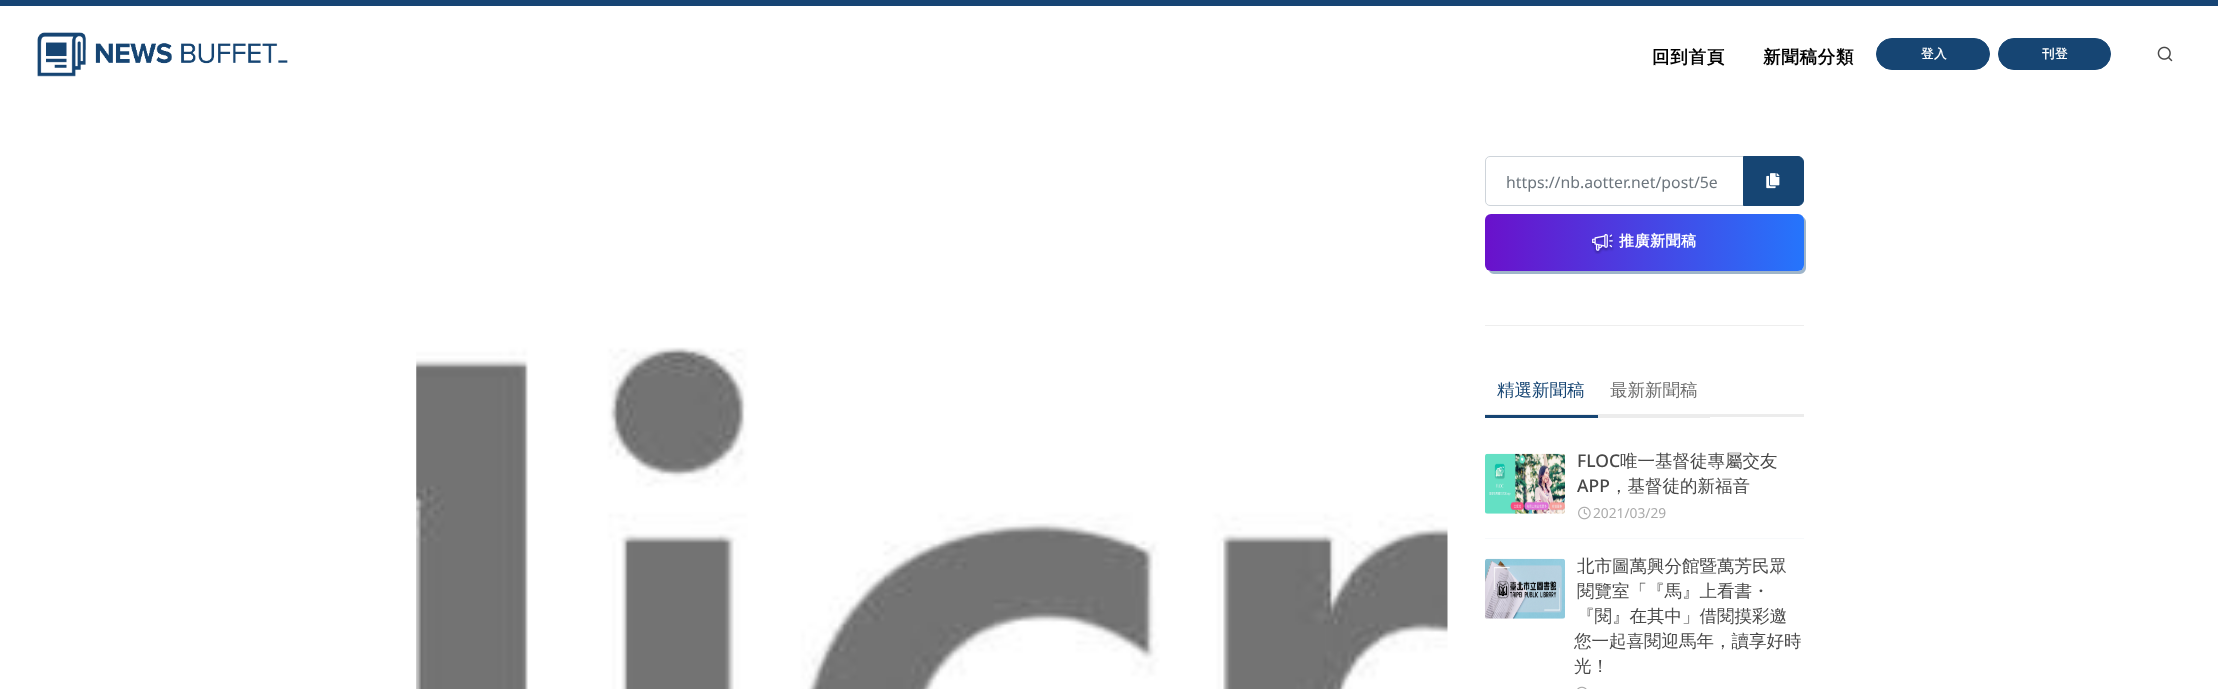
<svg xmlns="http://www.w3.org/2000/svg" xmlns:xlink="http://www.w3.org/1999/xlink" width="2218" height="689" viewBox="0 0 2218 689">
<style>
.cls-1{font:bold 17.5px WenQuanYi Zen Hei;letter-spacing:0.75px;fill:#000000}
.cls-2{font:bold 12.5px WenQuanYi Zen Hei;letter-spacing:0.5px;fill:#ffffff}
.cls-3{font:15.8px Noto Sans;fill:#6c757d}
.cls-4{font:bold 15px WenQuanYi Zen Hei;letter-spacing:0.5px;fill:#ffffff}
.cls-5{font:500 17.5px WenQuanYi Zen Hei;fill:#164573}
.cls-6{font:500 17.5px WenQuanYi Zen Hei;fill:#6d6d6d}
.cls-7{font:500 17.5px Noto Sans;fill:#484848}
.cls-8{font:500 17.5px WenQuanYi Zen Hei;fill:#484848}
.cls-9{font:13.75px Noto Sans;fill:#aaaaaa}
</style>
<defs>
<linearGradient id="g1" gradientUnits="userSpaceOnUse" x1="1485" y1="243" x2="1804" y2="243"><stop offset="0" stop-color="#6a11cb"/><stop offset="1" stop-color="#2575fc"/></linearGradient>
</defs>
<rect width="100%" height="100%" fill="#ffffff"/>
<rect fill="#164474" x="0" y="0" width="2218" height="6"/>
<image xlink:href="image0.png" x="37" y="32" width="251" height="45"/>
<rect fill="#164573" stroke="#164573" x="1876.5" y="38.5" width="113" height="31" rx="15.5"/>
<rect fill="#164573" stroke="#164573" x="1998.5" y="38.5" width="112" height="31" rx="15.5"/>
<image xlink:href="image1.png" x="2157" y="46" width="16" height="16"/>
<image xlink:href="image2.png" x="416" y="347" width="1032" height="342"/>
<path fill="none" stroke="#ced4da" d="M1490 156.5H1743.5V205.5H1490C1487.5 205.5 1485.5 203.5 1485.5 201V161C1485.5 158.5 1487.5 156.5 1490 156.5Z"/>
<path fill="#164573" stroke="#164573" d="M1743.5 156.5H1798C1801 156.5 1803.5 159 1803.5 162V200C1803.5 203 1801 205.5 1798 205.5H1743.5Z"/>
<image xlink:href="image3.png" x="1766" y="173" width="14" height="16"/>
<path fill="#9fb5c9" d="M1489 271C1490 273 1492 274 1494 274H1800C1803 274 1806 271 1806 268V222C1806 220 1805 218 1803 217L1804 220V265C1804 268 1801 271 1798 271H1491Z"/>
<rect fill="url(#g1)" x="1485" y="214" width="319" height="57" rx="6"/>
<image xlink:href="image4.png" x="1591" y="234" width="23" height="20"/>
<rect fill="#eeeeee" x="1485" y="325" width="319" height="1"/>
<rect fill="#ececec" x="1485" y="414" width="319" height="3"/>
<rect fill="#164573" x="1485" y="415" width="113" height="3"/>
<rect fill="#ececec" x="1598" y="417" width="112" height="1"/>
<rect fill="#f7f9fb" x="1485" y="538" width="319" height="1"/>
<image xlink:href="image5.png" x="1485" y="453" width="80" height="61"/>
<image xlink:href="image6.png" x="1578" y="506" width="13" height="14"/>
<image xlink:href="image7.png" x="1485" y="558" width="80" height="61"/>
<image xlink:href="image8.png" x="1577" y="686" width="10" height="3"/>
<text class="cls-1" x="1652" y="63">回到首頁</text>
<text class="cls-1" x="1763" y="63">新聞稿分類</text>
<text class="cls-2" x="1921" y="58">登入</text>
<text class="cls-2" x="2042" y="58">刊登</text>
<text class="cls-3" x="1506" y="188">https://nb.aotter.net/post/5e</text>
<text class="cls-4" x="1619" y="246">推廣新聞稿</text>
<text class="cls-5" x="1497" y="396">精選新聞稿</text>
<text class="cls-6" x="1610" y="396">最新新聞稿</text>
<text class="cls-7" x="1577" y="467">FLOC</text>
<text class="cls-8" x="1620" y="467">唯一基督徒專屬交友</text>
<text class="cls-7" x="1577" y="492">APP</text>
<text class="cls-8" x="1610" y="492">，基督徒的新福音</text>
<text class="cls-9" x="1593" y="518">2021/03/29</text>
<text class="cls-8"><tspan x="1577" y="572">北市圖萬興分館暨萬芳民眾</tspan><tspan x="1577" y="597">閱覽室「『馬』上看書・</tspan><tspan x="1577" y="622">『閱』在其中」借閱摸彩邀</tspan></text>
<text class="cls-8"><tspan x="1574" y="647">您一起喜閱迎馬年，讀享好時</tspan><tspan x="1574" y="672">光！</tspan></text>
</svg>
